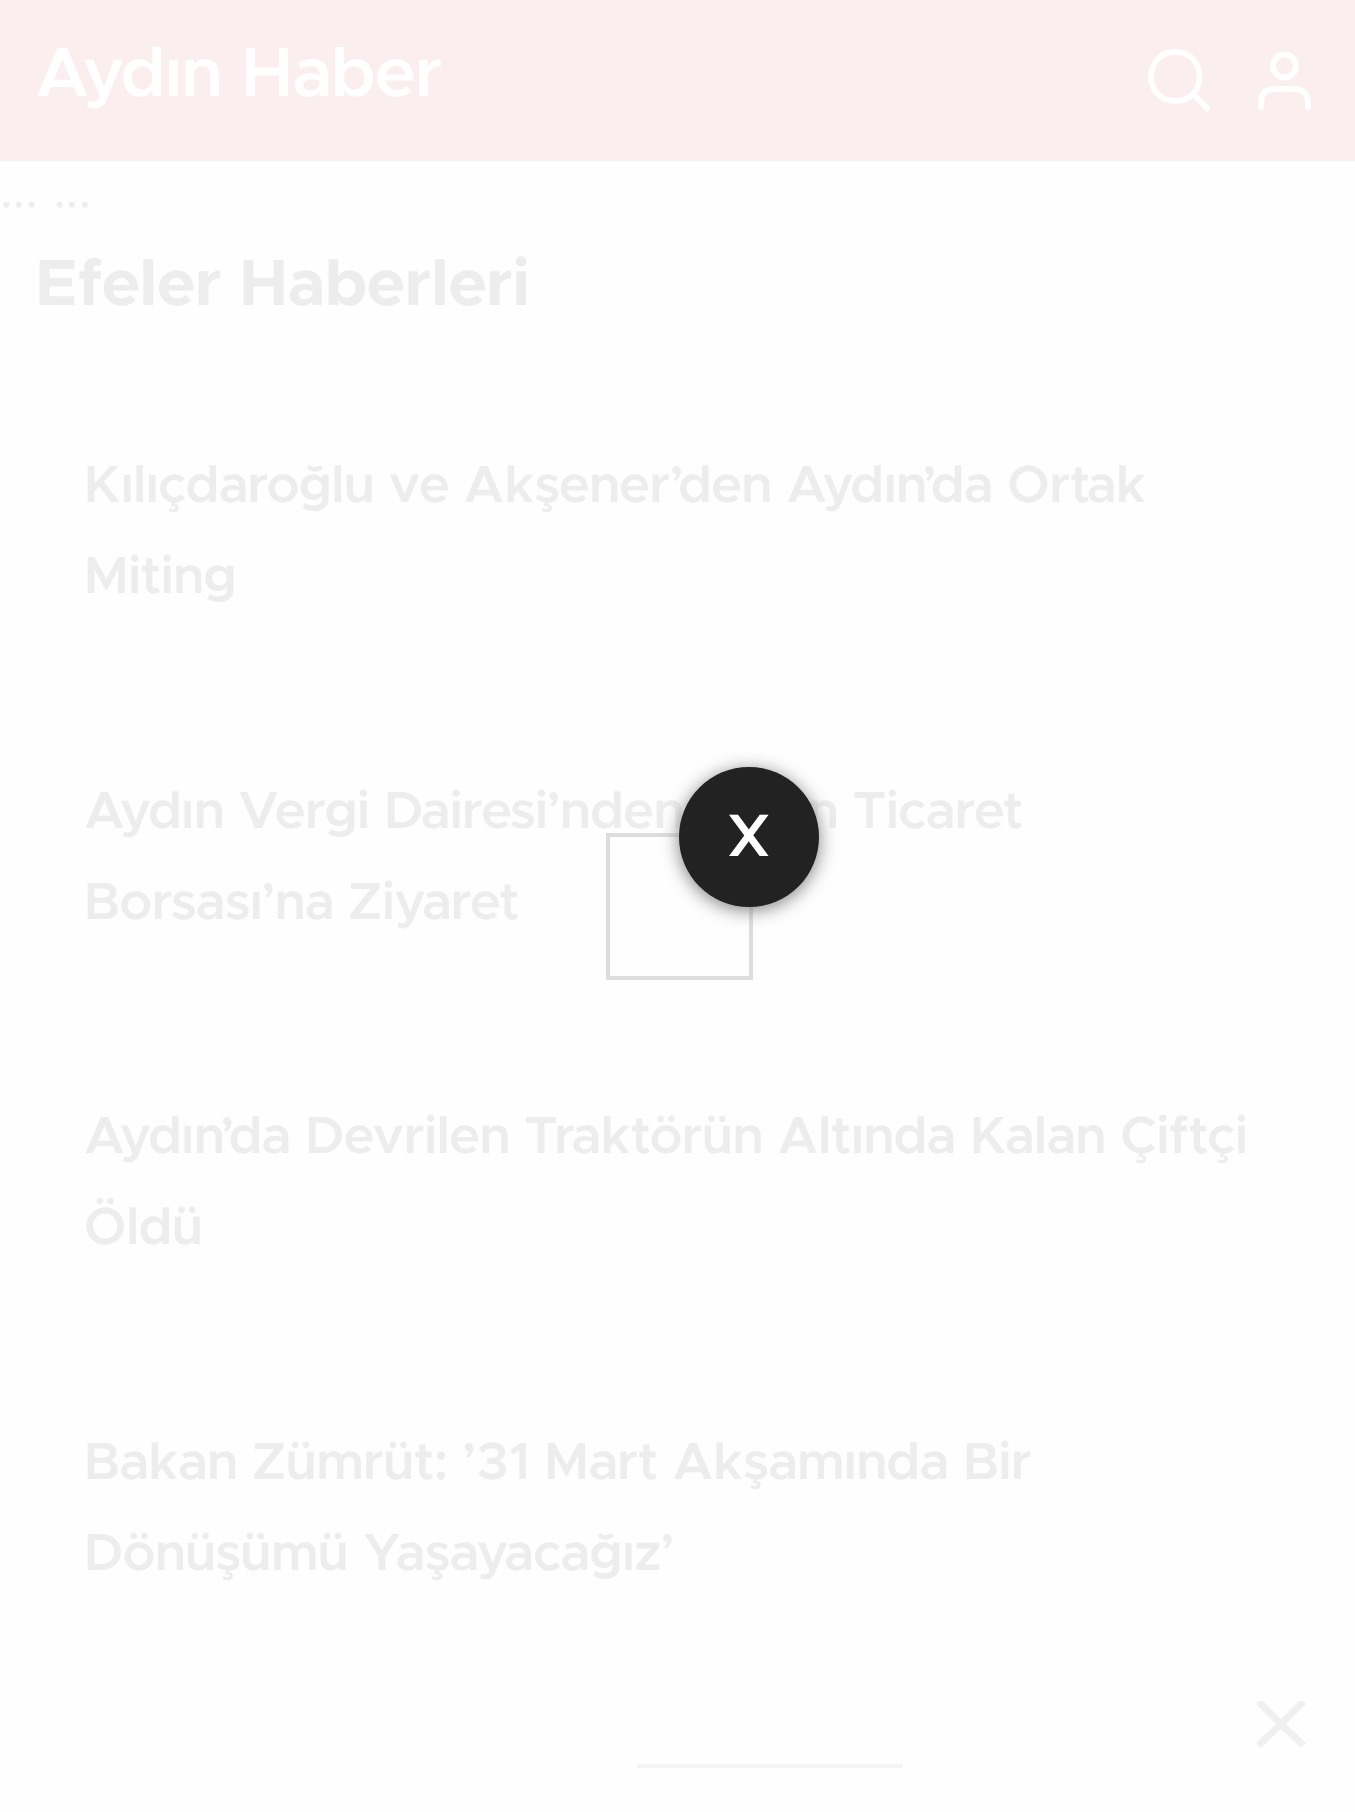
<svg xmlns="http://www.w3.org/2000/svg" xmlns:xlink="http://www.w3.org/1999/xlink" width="1355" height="1812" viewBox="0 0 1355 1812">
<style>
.cls-1{font:600 70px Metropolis;fill:#ffffff}
.cls-2{font:56px Metropolis;fill:#ededed}
.cls-3{font:bold 65.5px Metropolis;fill:#ededed}
.cls-4{font:600 52.5px Metropolis;fill:#ededed}
.cls-5{font:600 60px Metropolis;fill:#ffffff}
</style>
<defs>
<clipPath id="clip1"><rect x="1257" y="1701" width="49" height="49"/></clipPath>
</defs>
<rect width="100%" height="100%" fill="#fefefe"/>
<rect fill="#fbeeef" x="0" y="0" width="1355" height="161"/>
<path fill="none" stroke="#ffffff" stroke-width="5.8" stroke-linecap="round" stroke-linejoin="round" d="M1175.5 101C1207.5 101 1207.5 52 1175.5 52C1143 52 1143 101 1175.5 101ZM1193 94L1207 108"/>
<path fill="none" stroke="#ffffff" stroke-width="5.8" stroke-linecap="round" stroke-linejoin="round" d="M1308 107L1307.5 98.5C1305.5 87 1293 89 1284.5 89C1276 89 1263.5 87 1261.5 98.5L1261 107"/>
<circle fill="none" stroke="#ffffff" stroke-width="5.8" cx="1284.5" cy="66" r="11.5"/>
<g clip-path="url(#clip1)">
<path fill="#f0f0f0" d="M1306 1704L1301 1699L1281 1719L1261 1699L1256 1704L1276 1724L1256 1743L1261 1748L1281 1729L1301 1748L1306 1743L1286 1724Z"/>
</g>
<rect fill="#f4f4f4" x="637" y="1764" width="266" height="4"/>
<text class="cls-1" x="35" y="96">Aydın Haber</text>
<text class="cls-2" x="0" y="207">... ...</text>
<text class="cls-3" x="35" y="305">Efeler Haberleri</text>
<text class="cls-4"><tspan x="84" y="502">Kılıçdaroğlu ve Akşener’den Aydın’da Ortak</tspan><tspan x="84" y="593">Miting</tspan></text>
<text class="cls-4" x="84" y="828">Aydın Vergi Dairesi’nden</text>
<text class="cls-4" x="808" y="828">n Ticaret</text>
<text class="cls-4" x="84" y="919">Borsası’na Ziyaret</text>
<text class="cls-4"><tspan x="84" y="1153">Aydın’da Devrilen Traktörün Altında Kalan Çiftçi</tspan><tspan x="84" y="1244">Öldü</tspan></text>
<text class="cls-4"><tspan x="84" y="1479">Bakan Zümrüt: ’31 Mart Akşamında Bir</tspan><tspan x="84" y="1570">Dönüşümü Yaşayacağız’</tspan></text>
<rect fill="none" stroke="#dddddd" stroke-width="4" x="608" y="835" width="143" height="143"/>
<rect fill="#808080" filter="blur(9px)" x="679" y="770" width="140" height="140" rx="70"/>
<circle fill="#222222" cx="749" cy="837" r="70"/>
<text class="cls-5" x="727" y="856">X</text>
</svg>
